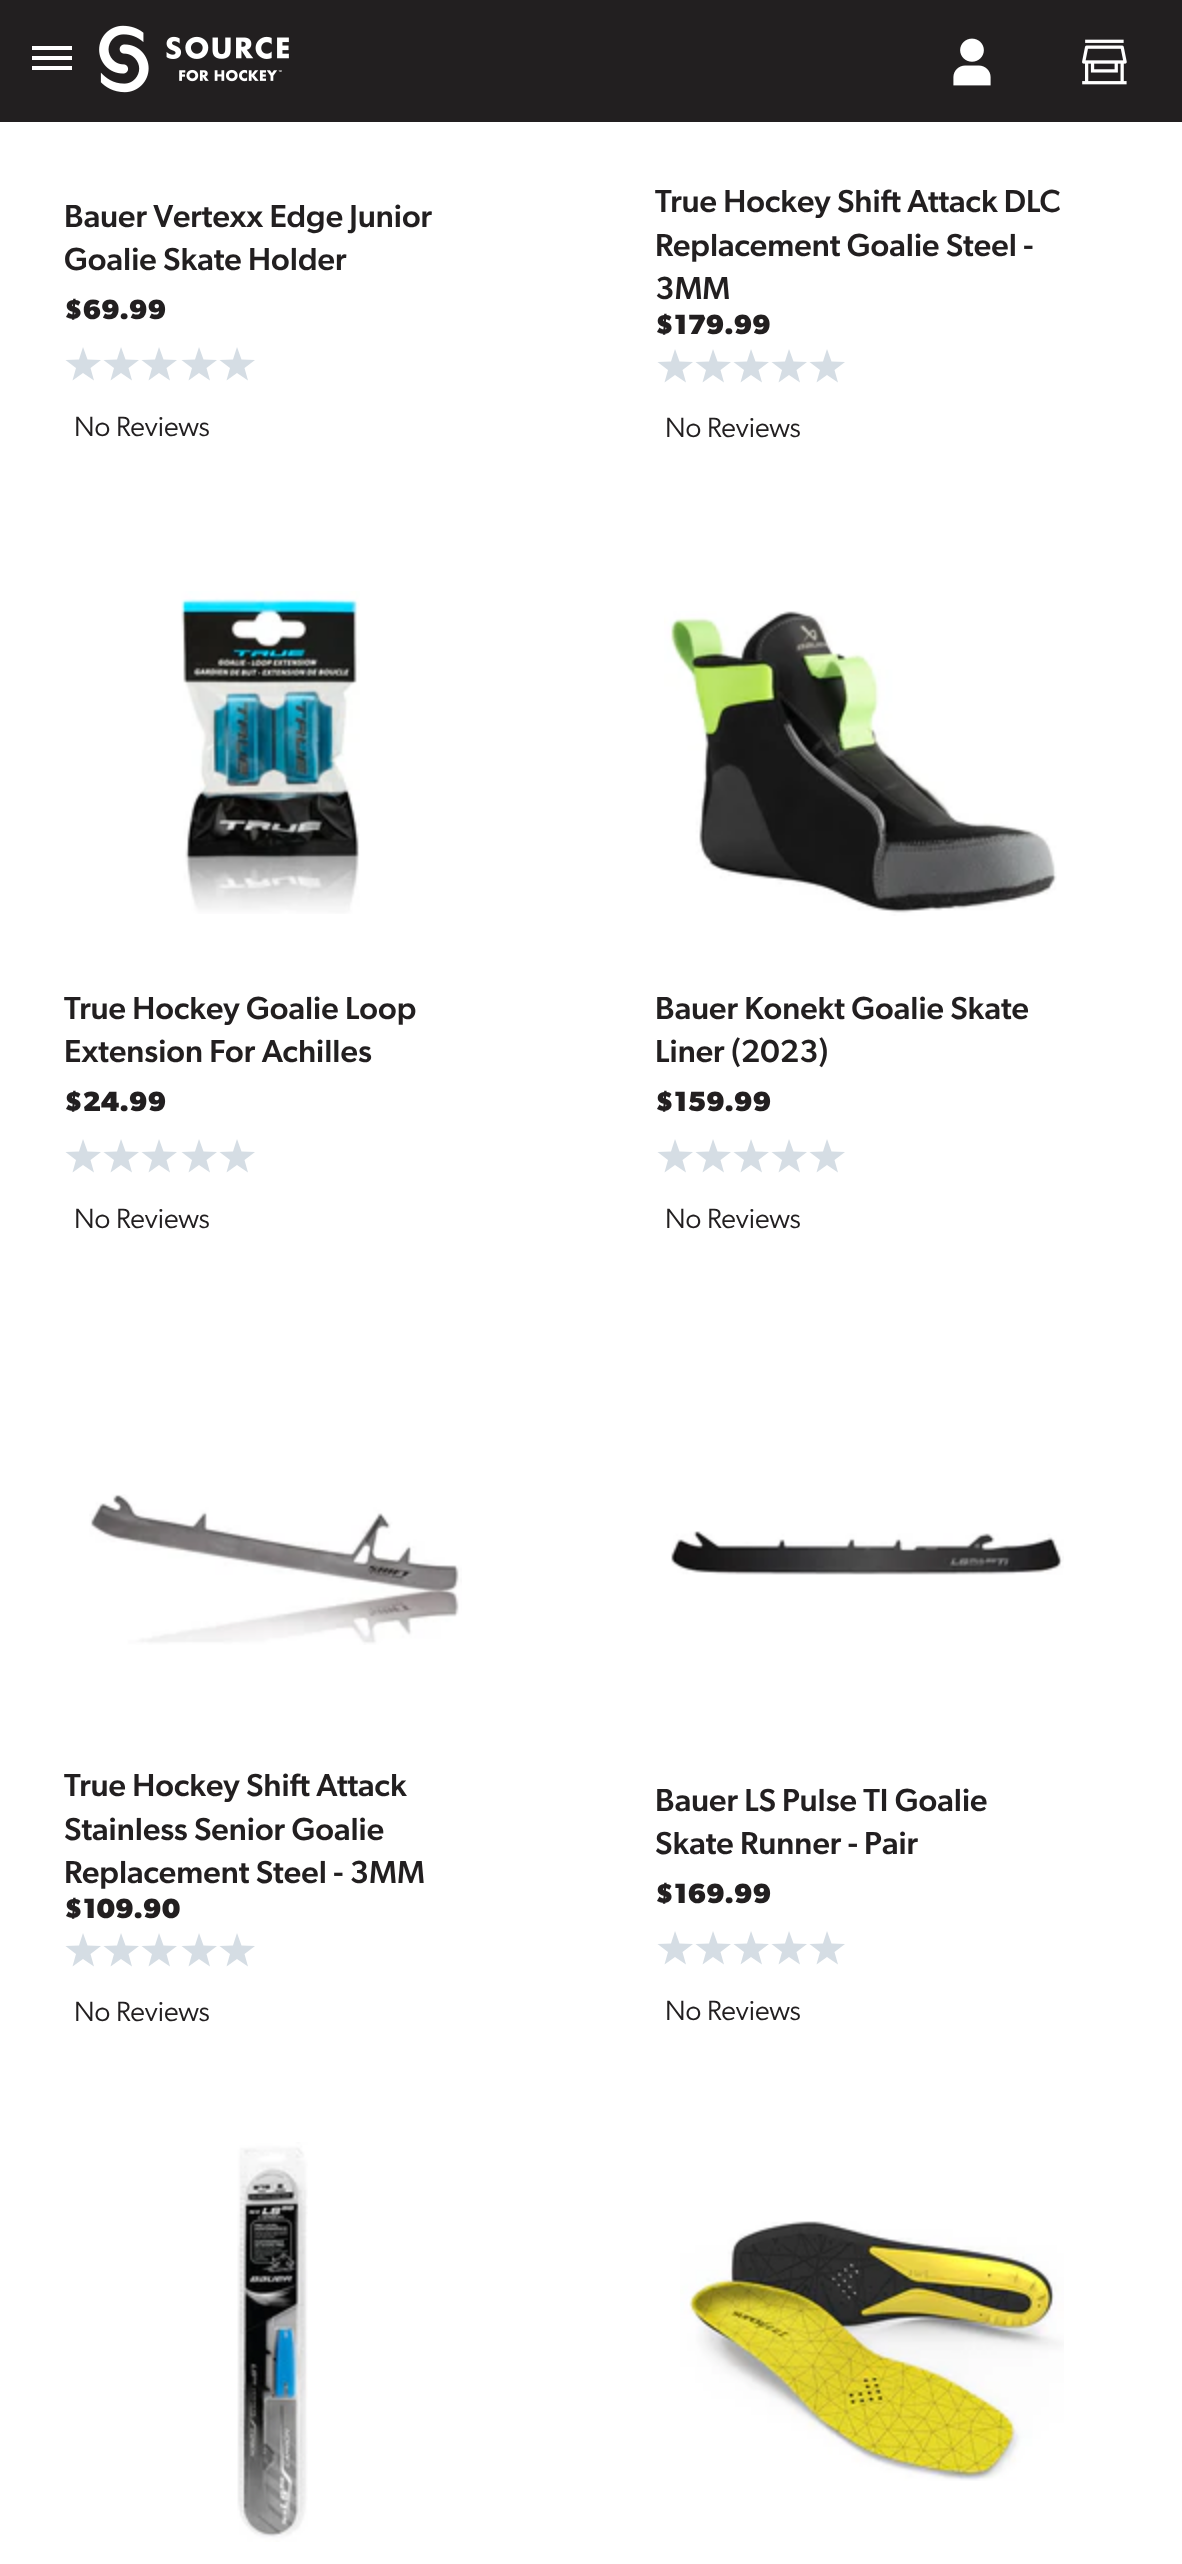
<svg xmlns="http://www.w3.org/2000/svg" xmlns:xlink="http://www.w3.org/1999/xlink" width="1182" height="2564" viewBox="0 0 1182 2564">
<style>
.cls-1{font:500 32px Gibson;fill:#221f20}
.cls-2{font:bold 28px Gibson;fill:#221f20}
.cls-3{font:28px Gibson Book;fill:#221f20}
</style>
<rect width="100%" height="100%" fill="#ffffff"/>
<rect fill="#221f20" x="0" y="0" width="1182" height="122"/>
<rect fill="#ffffff" x="32" y="46" width="40" height="4"/>
<rect fill="#ffffff" x="32" y="56" width="40" height="4"/>
<rect fill="#ffffff" x="32" y="66" width="40" height="4"/>
<image xlink:href="image0.png" x="99" y="25" width="190" height="68"/>
<image xlink:href="image1.png" x="953" y="38" width="38" height="48"/>
<image xlink:href="image2.png" x="1082" y="39" width="45" height="46"/>
<path fill="#d5dde4" d="M94 380.5L83 373L72.5 380.5L76 368L65.5 360L79 359.5L83 347L87.5 359.5L101 360L90.5 368Z"/>
<path fill="#d5dde4" d="M132 380.5L121 373L110.5 380.5L114 368L103.5 360L117 359.5L121 347L125.5 359.5L139 360L128.5 368Z"/>
<path fill="#d5dde4" d="M170 380.5L159 373L148.5 380.5L152 368L141.5 360L155 359.5L159 347L163.5 359.5L177 360L166.5 368Z"/>
<path fill="#d5dde4" d="M210 380.5L199 373L188.5 380.5L192 368L181.5 360L195 359.5L199 347L203.5 359.5L217 360L206.5 368Z"/>
<path fill="#d5dde4" d="M248 380.5L237 373L226.5 380.5L230 368L219.5 360L233 359.5L237 347L241.5 359.5L255 360L244.5 368Z"/>
<path fill="#d5dde4" d="M686 382.5L675 375L664.5 382.5L668 370L657.5 362L671 361.5L675 349L679.5 361.5L693 362L682.5 370Z"/>
<path fill="#d5dde4" d="M724 382.5L713 375L702.5 382.5L706 370L695.5 362L709 361.5L713 349L717.5 361.5L731 362L720.5 370Z"/>
<path fill="#d5dde4" d="M762 382.5L751 375L740.5 382.5L744 370L733.5 362L747 361.5L751 349L755.5 361.5L769 362L758.5 370Z"/>
<path fill="#d5dde4" d="M800 382.5L789 375L778.5 382.5L782 370L771.5 362L785 361.5L789 349L793.5 361.5L807 362L796.5 370Z"/>
<path fill="#d5dde4" d="M838 382.5L827 375L816.5 382.5L820 370L809.5 362L823 361.5L827 349L831.5 361.5L845 362L834.5 370Z"/>
<image xlink:href="image3.png" x="181" y="591" width="179" height="323"/>
<path fill="#d5dde4" d="M94 1172.5L83 1165L72.5 1172.5L76 1160L65.5 1152L79 1151.5L83 1139L87.5 1151.5L101 1152L90.5 1160Z"/>
<path fill="#d5dde4" d="M132 1172.5L121 1165L110.5 1172.5L114 1160L103.5 1152L117 1151.5L121 1139L125.5 1151.5L139 1152L128.5 1160Z"/>
<path fill="#d5dde4" d="M170 1172.5L159 1165L148.5 1172.5L152 1160L141.5 1152L155 1151.5L159 1139L163.5 1151.5L177 1152L166.5 1160Z"/>
<path fill="#d5dde4" d="M210 1172.5L199 1165L188.5 1172.5L192 1160L181.5 1152L195 1151.5L199 1139L203.5 1151.5L217 1152L206.5 1160Z"/>
<path fill="#d5dde4" d="M248 1172.5L237 1165L226.5 1172.5L230 1160L219.5 1152L233 1151.5L237 1139L241.5 1151.5L255 1152L244.5 1160Z"/>
<image xlink:href="image4.png" x="664" y="611" width="393" height="305"/>
<path fill="#d5dde4" d="M686 1172.5L675 1165L664.5 1172.5L668 1160L657.5 1152L671 1151.5L675 1139L679.5 1151.5L693 1152L682.5 1160Z"/>
<path fill="#d5dde4" d="M724 1172.5L713 1165L702.5 1172.5L706 1160L695.5 1152L709 1151.5L713 1139L717.5 1151.5L731 1152L720.5 1160Z"/>
<path fill="#d5dde4" d="M762 1172.5L751 1165L740.5 1172.5L744 1160L733.5 1152L747 1151.5L751 1139L755.5 1151.5L769 1152L758.5 1160Z"/>
<path fill="#d5dde4" d="M800 1172.5L789 1165L778.5 1172.5L782 1160L771.5 1152L785 1151.5L789 1139L793.5 1151.5L807 1152L796.5 1160Z"/>
<path fill="#d5dde4" d="M838 1172.5L827 1165L816.5 1172.5L820 1160L809.5 1152L823 1151.5L827 1139L831.5 1151.5L845 1152L834.5 1160Z"/>
<image xlink:href="image5.png" x="89" y="1494" width="373" height="151"/>
<path fill="#d5dde4" d="M94 1966.5L83 1959L72.5 1966.5L76 1954L65.5 1946L79 1945.5L83 1933L87.5 1945.5L101 1946L90.5 1954Z"/>
<path fill="#d5dde4" d="M132 1966.5L121 1959L110.5 1966.5L114 1954L103.5 1946L117 1945.5L121 1933L125.5 1945.5L139 1946L128.5 1954Z"/>
<path fill="#d5dde4" d="M170 1966.5L159 1959L148.5 1966.5L152 1954L141.5 1946L155 1945.5L159 1933L163.5 1945.5L177 1946L166.5 1954Z"/>
<path fill="#d5dde4" d="M210 1966.5L199 1959L188.5 1966.5L192 1954L181.5 1946L195 1945.5L199 1933L203.5 1945.5L217 1946L206.5 1954Z"/>
<path fill="#d5dde4" d="M248 1966.5L237 1959L226.5 1966.5L230 1954L219.5 1946L233 1945.5L237 1933L241.5 1945.5L255 1946L244.5 1954Z"/>
<image xlink:href="image6.png" x="671" y="1531" width="393" height="44"/>
<path fill="#d5dde4" d="M686 1964.5L675 1957L664.5 1964.5L668 1952L657.5 1944L671 1943.5L675 1931L679.5 1943.5L693 1944L682.5 1952Z"/>
<path fill="#d5dde4" d="M724 1964.5L713 1957L702.5 1964.5L706 1952L695.5 1944L709 1943.5L713 1931L717.5 1943.5L731 1944L720.5 1952Z"/>
<path fill="#d5dde4" d="M762 1964.5L751 1957L740.5 1964.5L744 1952L733.5 1944L747 1943.5L751 1931L755.5 1943.5L769 1944L758.5 1952Z"/>
<path fill="#d5dde4" d="M800 1964.5L789 1957L778.5 1964.5L782 1952L771.5 1944L785 1943.5L789 1931L793.5 1943.5L807 1944L796.5 1952Z"/>
<path fill="#d5dde4" d="M838 1964.5L827 1957L816.5 1964.5L820 1952L809.5 1944L823 1943.5L827 1931L831.5 1943.5L845 1944L834.5 1952Z"/>
<image xlink:href="image7.png" x="237" y="2142" width="71" height="400"/>
<image xlink:href="image8.png" x="680" y="2221" width="384" height="260"/>
<text class="cls-1"><tspan x="64" y="227">Bauer Vertexx Edge Junior</tspan><tspan x="64" y="270">Goalie Skate Holder</tspan></text>
<text class="cls-2" x="64" y="319">$69.99</text>
<text class="cls-3" x="74" y="436">No Reviews</text>
<text class="cls-1"><tspan x="655" y="212">True Hockey Shift Attack DLC</tspan><tspan x="655" y="256">Replacement Goalie Steel -</tspan><tspan x="655" y="299">3MM</tspan></text>
<text class="cls-2" x="655" y="334">$179.99</text>
<text class="cls-3" x="665" y="437">No Reviews</text>
<text class="cls-1"><tspan x="64" y="1019">True Hockey Goalie Loop</tspan><tspan x="64" y="1062">Extension For Achilles</tspan></text>
<text class="cls-2" x="64" y="1111">$24.99</text>
<text class="cls-3" x="74" y="1228">No Reviews</text>
<text class="cls-1"><tspan x="655" y="1019">Bauer Konekt Goalie Skate</tspan><tspan x="655" y="1062">Liner (2023)</tspan></text>
<text class="cls-2" x="655" y="1111">$159.99</text>
<text class="cls-3" x="665" y="1228">No Reviews</text>
<text class="cls-1"><tspan x="64" y="1796">True Hockey Shift Attack</tspan><tspan x="64" y="1840">Stainless Senior Goalie</tspan><tspan x="64" y="1883">Replacement Steel - 3MM</tspan></text>
<text class="cls-2" x="64" y="1918">$109.90</text>
<text class="cls-3" x="74" y="2021">No Reviews</text>
<text class="cls-1"><tspan x="655" y="1811">Bauer LS Pulse TI Goalie</tspan><tspan x="655" y="1854">Skate Runner - Pair</tspan></text>
<text class="cls-2" x="655" y="1903">$169.99</text>
<text class="cls-3" x="665" y="2020">No Reviews</text>
</svg>
